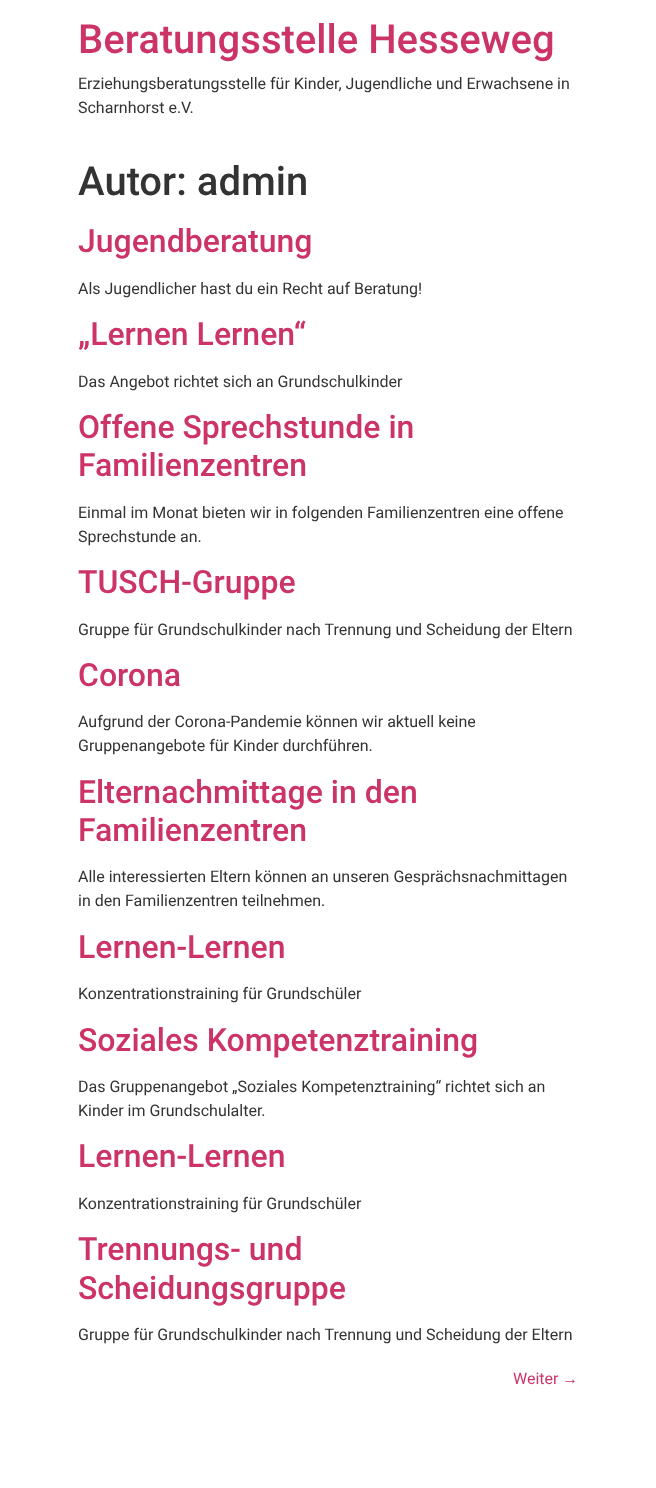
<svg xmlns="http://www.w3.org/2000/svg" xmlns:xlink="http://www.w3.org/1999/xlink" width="656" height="1488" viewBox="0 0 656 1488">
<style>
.cls-1{font:500 40px Roboto;fill:#cc3366}
.cls-2{font:16px Roboto;fill:#333333}
.cls-3{font:500 40px Roboto;fill:#333333}
.cls-4{font:500 32px Roboto;fill:#cc3366}
.cls-5{font:16px Roboto;fill:#cc3366}
.cls-6{font:16px Liberation Sans;fill:#cc3366}
</style>
<rect width="100%" height="100%" fill="#ffffff"/>
<text class="cls-1" x="78" y="53">Beratungsstelle Hesseweg</text>
<text class="cls-2"><tspan x="78" y="89">Erziehungsberatungsstelle für Kinder, Jugendliche und Erwachsene in</tspan><tspan x="78" y="113">Scharnhorst e.V.</tspan></text>
<text class="cls-3" x="78" y="195">Autor: admin</text>
<text class="cls-4" x="78" y="252">Jugendberatung</text>
<text class="cls-2" x="78" y="294">Als Jugendlicher hast du ein Recht auf Beratung!</text>
<text class="cls-4" x="78" y="345">„Lernen Lernen“</text>
<text class="cls-2" x="78" y="387">Das Angebot richtet sich an Grundschulkinder</text>
<text class="cls-4"><tspan x="78" y="438">Offene Sprechstunde in</tspan><tspan x="78" y="476">Familienzentren</tspan></text>
<text class="cls-2"><tspan x="78" y="518">Einmal im Monat bieten wir in folgenden Familienzentren eine offene</tspan><tspan x="78" y="542">Sprechstunde an.</tspan></text>
<text class="cls-4" x="78" y="593">TUSCH-Gruppe</text>
<text class="cls-2" x="78" y="635">Gruppe für Grundschulkinder nach Trennung und Scheidung der Eltern</text>
<text class="cls-4" x="78" y="686">Corona</text>
<text class="cls-2"><tspan x="78" y="727">Aufgrund der Corona-Pandemie können wir aktuell keine</tspan><tspan x="78" y="751">Gruppenangebote für Kinder durchführen.</tspan></text>
<text class="cls-4"><tspan x="78" y="803">Elternachmittage in den</tspan><tspan x="78" y="841">Familienzentren</tspan></text>
<text class="cls-2"><tspan x="78" y="882">Alle interessierten Eltern können an unseren Gesprächsnachmittagen</tspan><tspan x="78" y="906">in den Familienzentren teilnehmen.</tspan></text>
<text class="cls-4" x="78" y="958">Lernen-Lernen</text>
<text class="cls-2" x="78" y="999">Konzentrationstraining für Grundschüler</text>
<text class="cls-4" x="78" y="1051">Soziales Kompetenztraining</text>
<text class="cls-2"><tspan x="78" y="1092">Das Gruppenangebot „Soziales Kompetenztraining“ richtet sich an</tspan><tspan x="78" y="1116">Kinder im Grundschulalter.</tspan></text>
<text class="cls-4" x="78" y="1167">Lernen-Lernen</text>
<text class="cls-2" x="78" y="1209">Konzentrationstraining für Grundschüler</text>
<text class="cls-4"><tspan x="78" y="1260">Trennungs- und</tspan><tspan x="78" y="1299">Scheidungsgruppe</tspan></text>
<text class="cls-2" x="78" y="1340">Gruppe für Grundschulkinder nach Trennung und Scheidung der Eltern</text>
<text class="cls-5" x="513" y="1384">Weiter</text>
<text class="cls-6" x="562" y="1384">→</text>
</svg>
